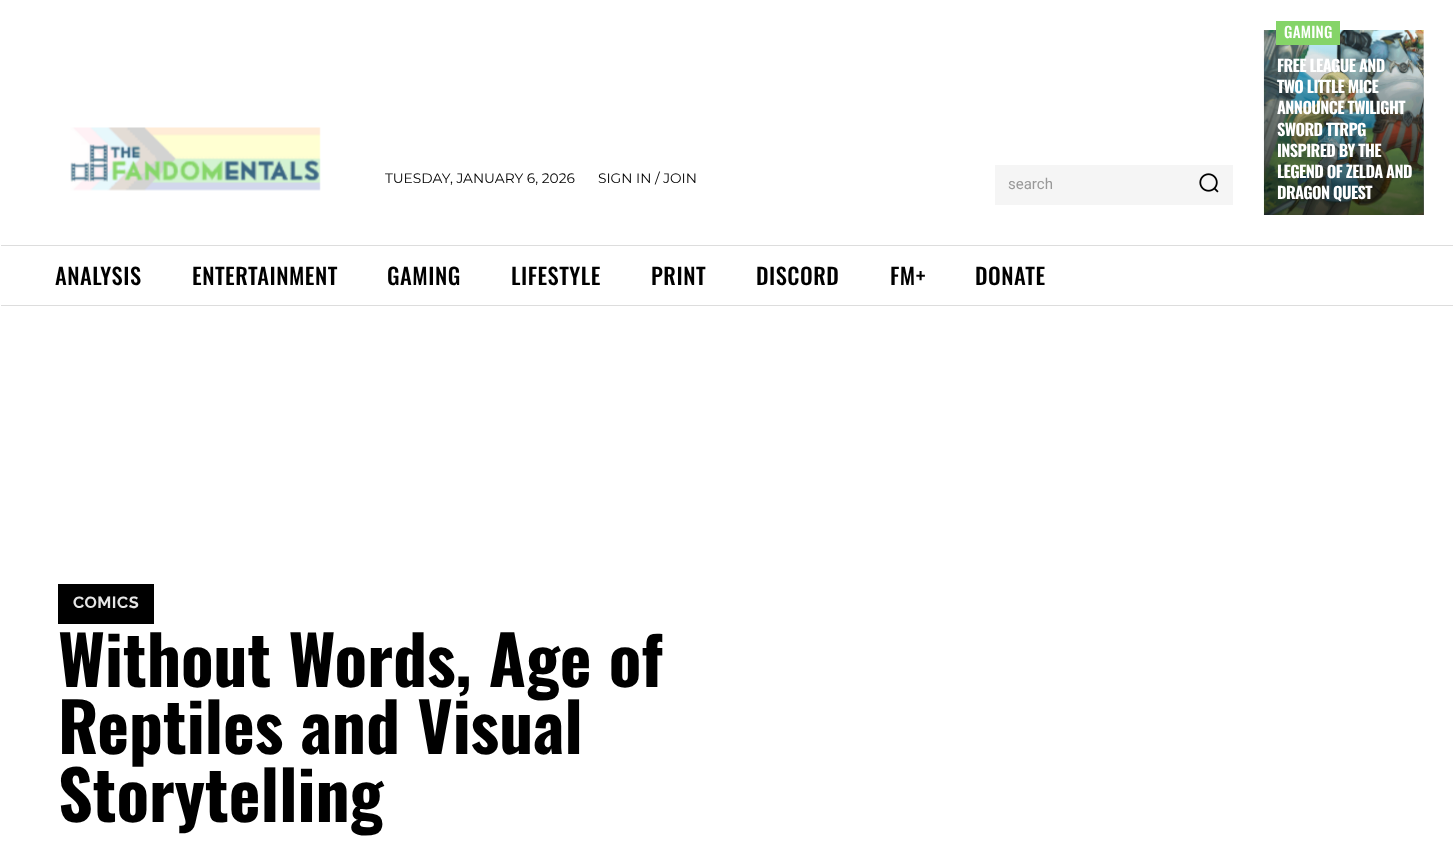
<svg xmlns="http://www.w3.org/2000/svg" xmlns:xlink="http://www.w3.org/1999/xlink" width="1453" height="851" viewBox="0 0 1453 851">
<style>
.cls-1{font:13.75px Montserrat;fill:#000000}
.cls-2{font:15px Roboto;fill:#999999}
.cls-3{font:500 15px Oswald;letter-spacing:0.25px;fill:#ffffff}
.cls-4{font:bold 16.25px Oswald;letter-spacing:-0.6px;fill:#ffffff}
.cls-5{font:500 22.5px Oswald;letter-spacing:0.5px;fill:#000000}
.cls-6{font:bold 16.25px Raleway;letter-spacing:0.5px;fill:#e6e6e6}
.cls-7{font:bold 67.5px Oswald;fill:#000000}
</style>
<defs>
<linearGradient id="g1" gradientUnits="userSpaceOnUse" x1="1344" y1="215" x2="1344" y2="30"><stop offset="0" stop-color="#000000" stop-opacity="0.7"/><stop offset="1" stop-color="#000000" stop-opacity="0"/></linearGradient>
</defs>
<rect width="100%" height="100%" fill="#ffffff"/>
<image xlink:href="image0.png" x="70" y="127" width="251" height="64"/>
<rect fill="#f5f5f5" x="995" y="165" width="238" height="40"/>
<image xlink:href="image1.png" x="1199" y="173" width="20" height="20"/>
<image xlink:href="image2.png" x="1263" y="30" width="161" height="185"/>
<rect fill="url(#g1)" x="1264" y="36" width="160" height="179"/>
<rect fill="#85d468" x="1276" y="21" width="64" height="24"/>
<rect fill="#dddddd" x="1" y="245" width="1452" height="1"/>
<rect fill="#dddddd" x="1" y="305" width="1452" height="1"/>
<rect fill="#000000" x="58" y="584" width="96" height="40"/>
<text class="cls-1" x="385" y="183">TUESDAY, JANUARY 6, 2026</text>
<text class="cls-1" x="598" y="183">SIGN IN / JOIN</text>
<text class="cls-2" x="1008" y="189">search</text>
<text class="cls-3" x="1284" y="38">GAMING</text>
<text class="cls-4"><tspan x="1277" y="72">FREE LEAGUE AND</tspan><tspan x="1277" y="93">TWO LITTLE MICE</tspan><tspan x="1277" y="114">ANNOUNCE TWILIGHT</tspan><tspan x="1277" y="136">SWORD TTRPG</tspan><tspan x="1277" y="157">INSPIRED BY THE</tspan><tspan x="1277" y="178">LEGEND OF ZELDA AND</tspan><tspan x="1277" y="199">DRAGON QUEST</tspan></text>
<text class="cls-5" x="55" y="285">ANALYSIS</text>
<text class="cls-5" x="192" y="285">ENTERTAINMENT</text>
<text class="cls-5" x="387" y="285">GAMING</text>
<text class="cls-5" x="511" y="285">LIFESTYLE</text>
<text class="cls-5" x="651" y="285">PRINT</text>
<text class="cls-5" x="756" y="285">DISCORD</text>
<text class="cls-5" x="890" y="285">FM+</text>
<text class="cls-5" x="975" y="285">DONATE</text>
<text class="cls-6" x="73" y="608">COMICS</text>
<text class="cls-7"><tspan x="58" y="687">Without Words, Age of</tspan><tspan x="58" y="754">Reptiles and Visual</tspan><tspan x="58" y="822">Storytelling</tspan></text>
</svg>
